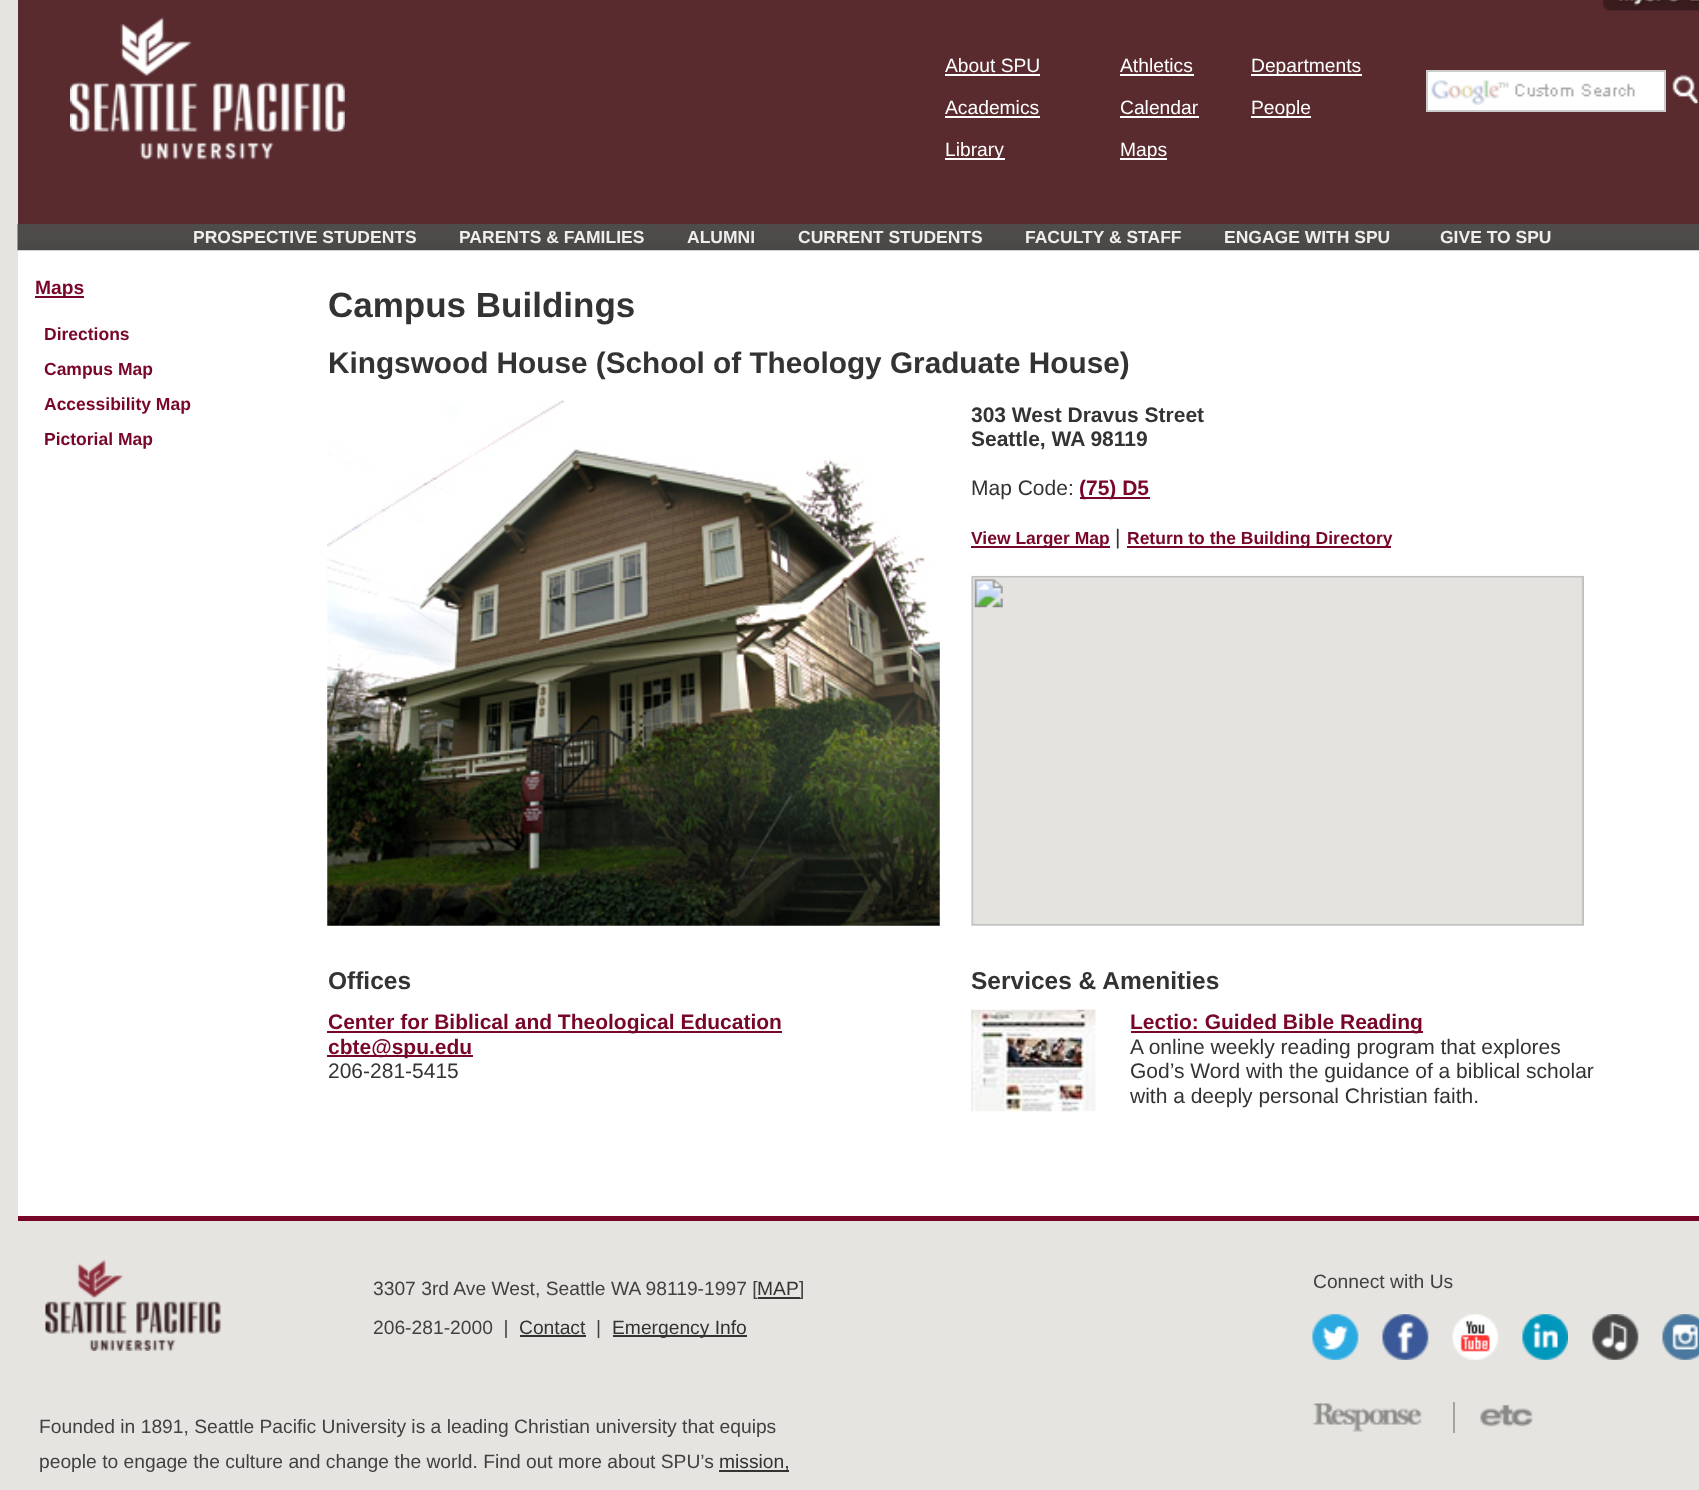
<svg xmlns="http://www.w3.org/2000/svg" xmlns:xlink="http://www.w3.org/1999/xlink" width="1699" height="1490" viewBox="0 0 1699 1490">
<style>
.cls-1{font:19.25px Liberation Sans;fill:#ffffff}
.cls-2{font:bold 17.5px Liberation Sans;fill:#eeeeee}
.cls-3{font:bold 19.25px Liberation Sans;fill:#780629}
.cls-4{font:bold 17.5px Liberation Sans;fill:#780629}
.cls-5{font:bold 35px Liberation Sans;fill:#333333}
.cls-6{font:bold 29.75px Liberation Sans;fill:#333333}
.cls-7{font:bold 21px Liberation Sans;fill:#333333}
.cls-8{font:21px Liberation Sans;fill:#333333}
.cls-9{font:bold 21px Liberation Sans;fill:#780629}
.cls-10{font:bold 24.5px Liberation Sans;fill:#333333}
.cls-11{font:19.25px Liberation Sans;fill:#424141}
.cls-12{font:19.25px Liberation Sans;fill:#333333}
</style>
<rect width="100%" height="100%" fill="#e5e4e0"/>
<rect fill="#592b2f" x="18" y="0" width="1681" height="224"/>
<image xlink:href="image0.png" x="1602" y="0" width="97" height="11"/>
<image xlink:href="image1.png" x="70" y="17" width="275" height="143"/>
<rect fill="#ffffff" x="945" y="74" width="95" height="2"/>
<rect fill="#ffffff" x="945" y="116" width="95" height="2"/>
<rect fill="#ffffff" x="945" y="158" width="60" height="2"/>
<rect fill="#ffffff" x="1120" y="74" width="74" height="2"/>
<rect fill="#ffffff" x="1120" y="116" width="79" height="2"/>
<rect fill="#ffffff" x="1120" y="158" width="47" height="2"/>
<rect fill="#ffffff" x="1251" y="74" width="111" height="2"/>
<rect fill="#ffffff" x="1251" y="116" width="60" height="2"/>
<rect fill="#ffffff" x="1428" y="72" width="236" height="38"/>
<image xlink:href="image2.png" x="1431" y="80" width="204" height="25"/>
<rect fill="none" stroke="#cccccc" stroke-width="2" x="1427" y="71" width="238" height="40"/>
<image xlink:href="image3.png" x="1672" y="74" width="26" height="30"/>
<rect fill="#ffffff" x="18" y="250" width="1681" height="966"/>
<image xlink:href="image4.png" x="17" y="224" width="1682" height="27"/>
<rect fill="#780629" x="35" y="296" width="49" height="2"/>
<image xlink:href="image5.png" x="327" y="400" width="613" height="526"/>
<rect fill="#780629" x="1080" y="497" width="70" height="2"/>
<rect fill="#780629" x="971" y="546" width="139" height="2"/>
<rect fill="#780629" x="1127" y="546" width="264" height="2"/>
<image xlink:href="image6.png" x="971" y="575" width="613" height="351"/>
<rect fill="#780629" x="327" y="1031" width="455" height="2"/>
<rect fill="#780629" x="327" y="1055" width="146" height="2"/>
<image xlink:href="image7.png" x="971" y="1009" width="125" height="103"/>
<rect fill="#780629" x="1131" y="1031" width="292" height="2"/>
<rect fill="#780629" x="18" y="1216" width="1681" height="5"/>
<rect fill="#333333" x="758" y="1297" width="42" height="2"/>
<rect fill="#333333" x="520" y="1335" width="66" height="2"/>
<rect fill="#333333" x="613" y="1335" width="134" height="2"/>
<image xlink:href="image8.png" x="1312" y="1314" width="47" height="46"/>
<image xlink:href="image9.png" x="1382" y="1314" width="47" height="46"/>
<image xlink:href="image10.png" x="1452" y="1314" width="47" height="46"/>
<image xlink:href="image11.png" x="1522" y="1314" width="46" height="46"/>
<image xlink:href="image12.png" x="1592" y="1314" width="47" height="46"/>
<image xlink:href="image13.png" x="1662" y="1314" width="37" height="46"/>
<image xlink:href="image14.png" x="1312" y="1403" width="110" height="29"/>
<rect fill="#a6a49d" x="1453" y="1402" width="2" height="31"/>
<image xlink:href="image15.png" x="1480" y="1405" width="53" height="22"/>
<image xlink:href="image16.png" x="45" y="1260" width="176" height="91"/>
<rect fill="#333333" x="719" y="1470" width="70" height="2"/>
<text class="cls-1" x="945" y="72">About SPU</text>
<text class="cls-1" x="945" y="114">Academics</text>
<text class="cls-1" x="945" y="156">Library</text>
<text class="cls-1" x="1120" y="72">Athletics</text>
<text class="cls-1" x="1120" y="114">Calendar</text>
<text class="cls-1" x="1120" y="156">Maps</text>
<text class="cls-1" x="1251" y="72">Departments</text>
<text class="cls-1" x="1251" y="114">People</text>
<text class="cls-2" x="193" y="243">PROSPECTIVE STUDENTS</text>
<text class="cls-2" x="459" y="243">PARENTS &amp; FAMILIES</text>
<text class="cls-2" x="687" y="243">ALUMNI</text>
<text class="cls-2" x="798" y="243">CURRENT STUDENTS</text>
<text class="cls-2" x="1025" y="243">FACULTY &amp; STAFF</text>
<text class="cls-2" x="1224" y="243">ENGAGE WITH SPU</text>
<text class="cls-2" x="1440" y="243">GIVE TO SPU</text>
<text class="cls-3" x="35" y="294">Maps</text>
<text class="cls-4" x="44" y="340">Directions</text>
<text class="cls-4" x="44" y="375">Campus Map</text>
<text class="cls-4" x="44" y="410">Accessibility Map</text>
<text class="cls-4" x="44" y="445">Pictorial Map</text>
<text class="cls-5" x="328" y="317">Campus Buildings</text>
<text class="cls-6" x="328" y="373">Kingswood House (School of Theology Graduate House)</text>
<text class="cls-7"><tspan x="971" y="422">303 West Dravus Street</tspan><tspan x="971" y="446">Seattle, WA 98119</tspan></text>
<text class="cls-8" x="971" y="495">Map Code:</text>
<text class="cls-9" x="1079" y="495">(75) D5</text>
<text class="cls-4" x="971" y="544">View Larger Map</text>
<text class="cls-8" x="1115" y="544">|</text>
<text class="cls-4" x="1127" y="544">Return to the Building Directory</text>
<text class="cls-10" x="328" y="989">Offices</text>
<text class="cls-9"><tspan x="328" y="1029">Center for Biblical and Theological Education</tspan><tspan x="328" y="1054">cbte@spu.edu</tspan></text>
<text class="cls-8" x="328" y="1078">206-281-5415</text>
<text class="cls-10" x="971" y="989">Services &amp; Amenities</text>
<text class="cls-9" x="1130" y="1029">Lectio: Guided Bible Reading</text>
<text class="cls-8"><tspan x="1130" y="1054">A online weekly reading program that explores</tspan><tspan x="1130" y="1078">God’s Word with the guidance of a biblical scholar</tspan><tspan x="1130" y="1103">with a deeply personal Christian faith.</tspan></text>
<text class="cls-11" x="373" y="1295">3307 3rd Ave West, Seattle WA 98119-1997 [</text>
<text class="cls-12" x="757" y="1295">MAP</text>
<text class="cls-11" x="799" y="1295">]</text>
<text class="cls-11" xml:space="preserve" x="373" y="1334">206-281-2000  |</text>
<text class="cls-12" x="519" y="1334">Contact</text>
<text class="cls-11" x="596" y="1334">|</text>
<text class="cls-12" x="612" y="1334">Emergency Info</text>
<text class="cls-11" x="1313" y="1288">Connect with Us</text>
<text class="cls-11"><tspan x="39" y="1433">Founded in 1891, Seattle Pacific University is a leading Christian university that equips</tspan><tspan x="39" y="1468">people to engage the culture and change the world. Find out more about SPU’s</tspan></text>
<text class="cls-12" x="719" y="1468">mission,</text>
</svg>
